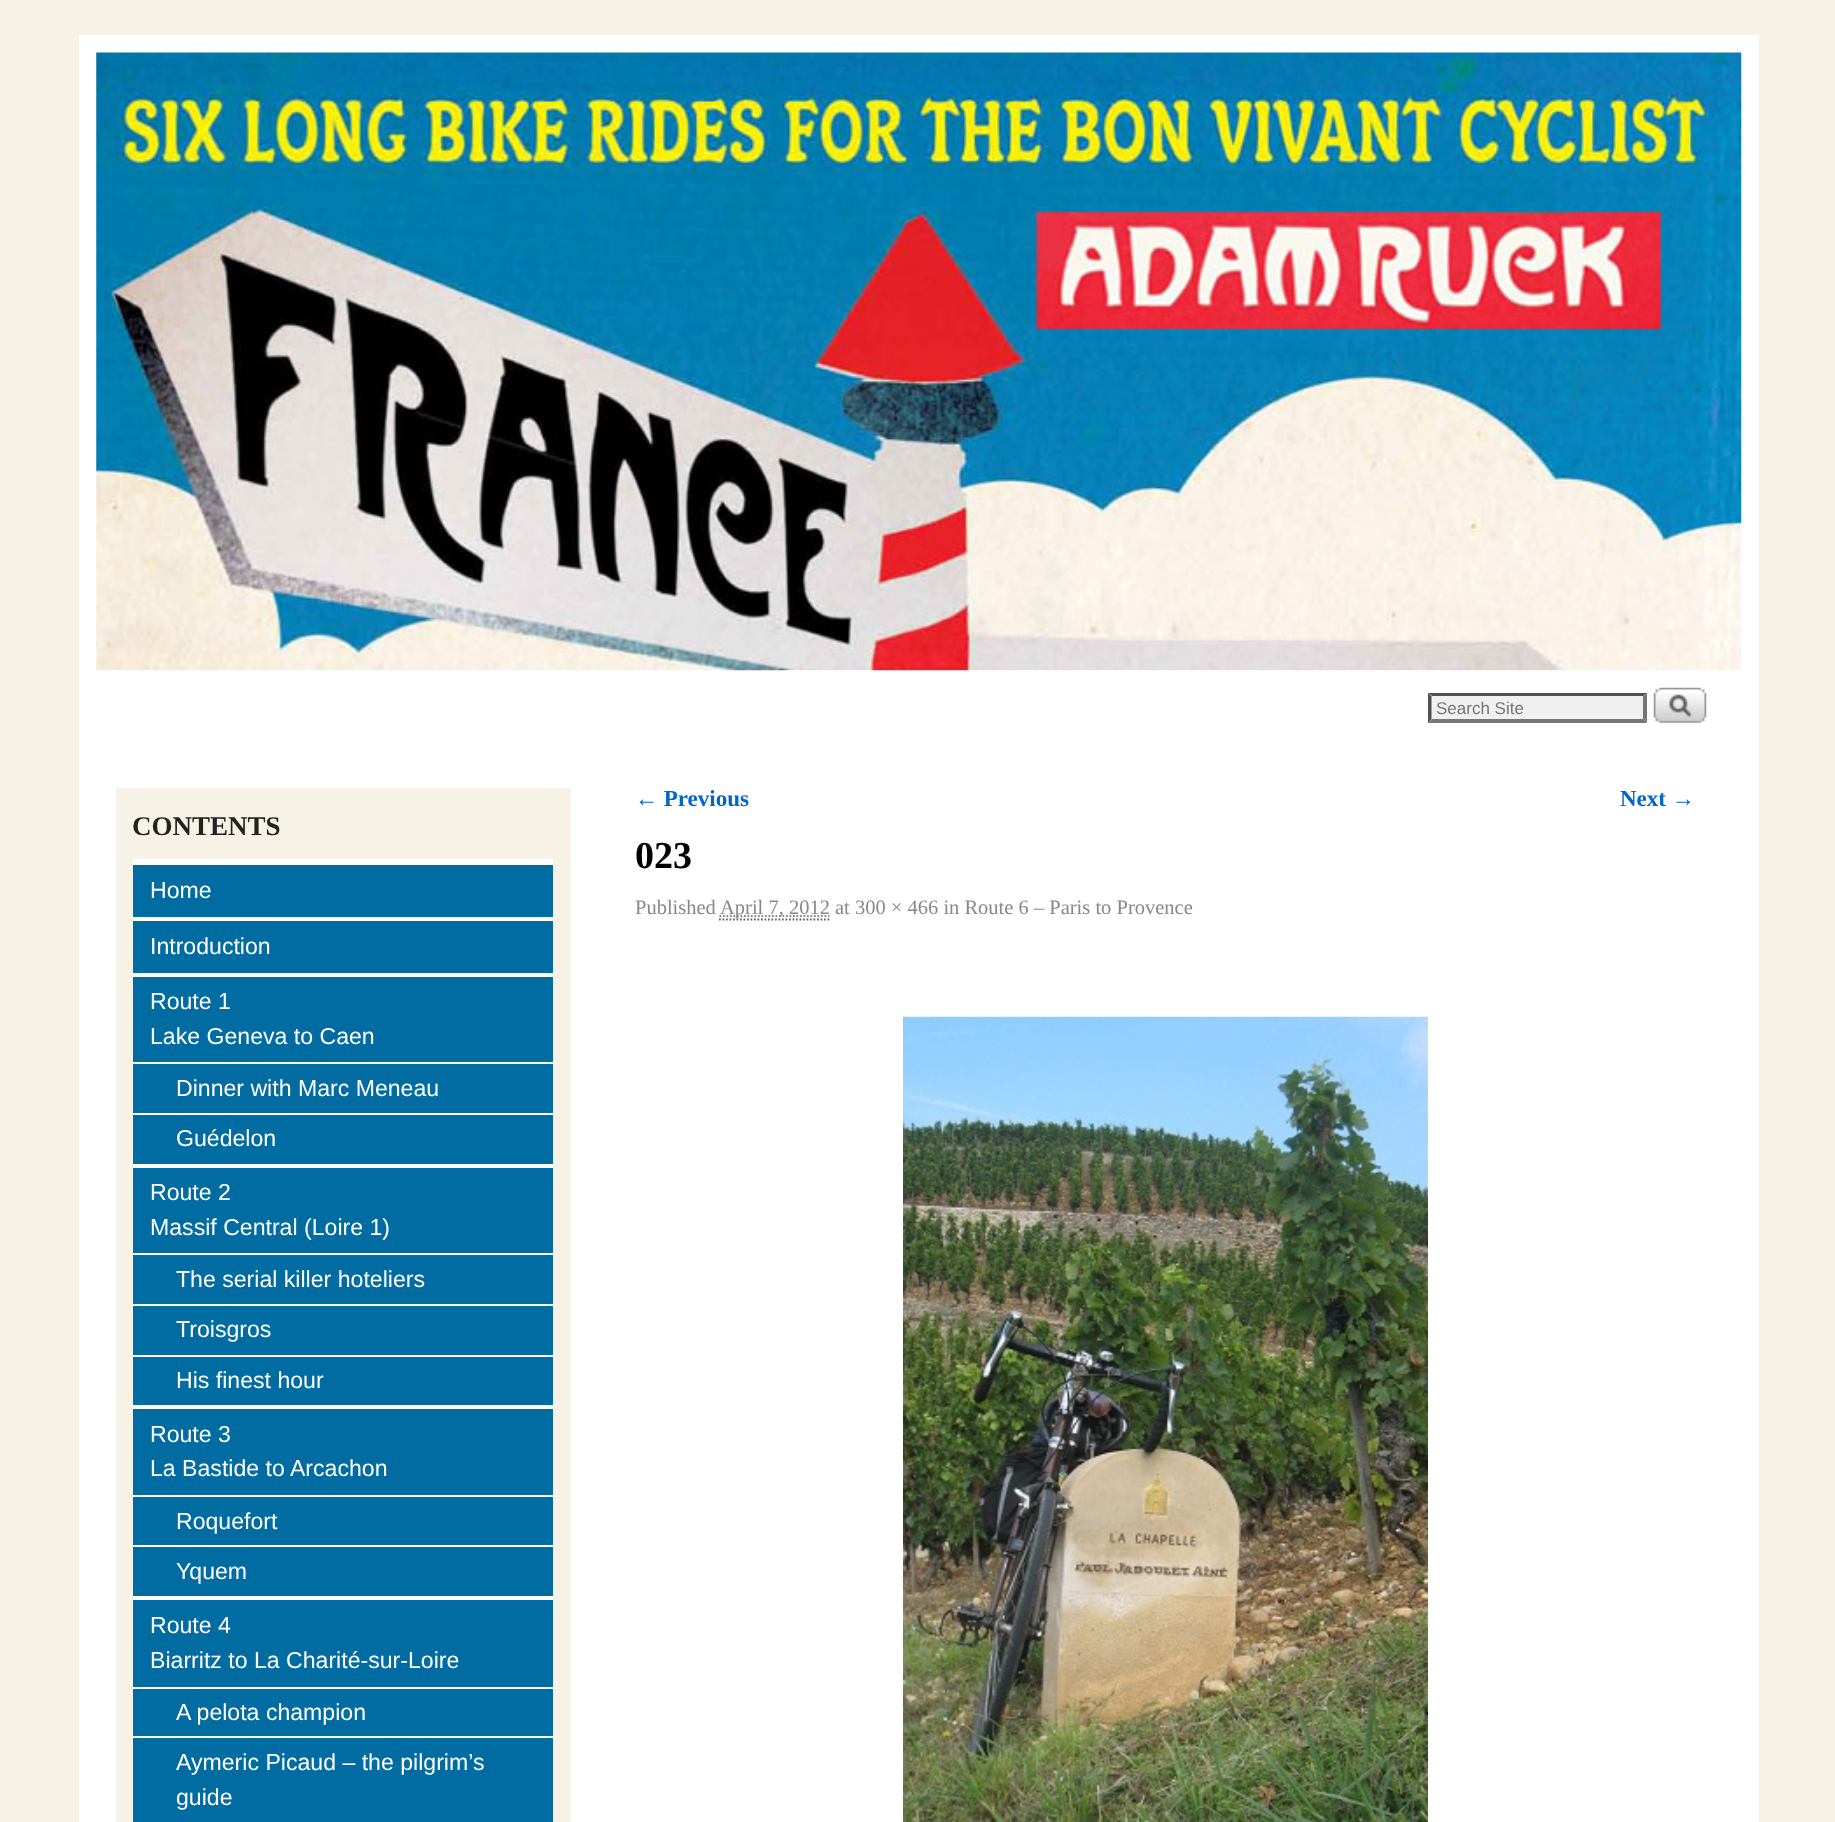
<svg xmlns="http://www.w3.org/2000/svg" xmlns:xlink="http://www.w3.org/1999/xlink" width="1835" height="1822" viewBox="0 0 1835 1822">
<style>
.cls-1{font:17px Liberation Sans;fill:#757575}
.cls-2{font:bold 27px Liberation Serif;fill:#222222}
.cls-3{font:23.1px Liberation Sans;fill:#ffffff}
.cls-4{font:bold 23px Liberation Serif;fill:#0066cc}
.cls-5{font:bold 38px Liberation Serif;fill:#000000}
.cls-6{font:20.5px Liberation Serif;fill:#888888}
</style>
<rect width="100%" height="100%" fill="#f7f2e6"/>
<rect fill="#ffffff" x="79" y="35" width="1680" height="1787"/>
<image xlink:href="image0.png" x="96" y="52" width="1646" height="619"/>
<rect fill="#f0f0f0" x="1428" y="693" width="219" height="30"/>
<path fill="#4f4f4f" d="M1428 693H1647L1643 696H1432Z"/>
<path fill="#767676" d="M1647 693V723L1643 719V696.5Z"/>
<path fill="#767676" d="M1647 723H1428L1432 719H1643Z"/>
<path fill="#4f4f4f" d="M1428 723V693L1431.5 696.5V719Z"/>
<image xlink:href="image1.png" x="1653" y="687" width="54" height="36"/>
<rect fill="#f7f2e6" x="116" y="788" width="455" height="1034"/>
<rect fill="#ffffff" x="133" y="859" width="420" height="6"/>
<rect fill="#006ca2" x="133" y="865" width="420" height="52"/>
<rect fill="#006ca2" x="133" y="921" width="420" height="52"/>
<rect fill="#ffffff" x="133" y="917" width="420" height="4"/>
<rect fill="#006ca2" x="133" y="977" width="420" height="85"/>
<rect fill="#ffffff" x="133" y="973" width="420" height="4"/>
<rect fill="#006ca2" x="133" y="1064" width="420" height="49"/>
<rect fill="#ffffff" x="133" y="1062" width="420" height="2"/>
<rect fill="#006ca2" x="133" y="1115" width="420" height="49"/>
<rect fill="#ffffff" x="133" y="1113" width="420" height="2"/>
<rect fill="#006ca2" x="133" y="1168" width="420" height="85"/>
<rect fill="#ffffff" x="133" y="1164" width="420" height="4"/>
<rect fill="#006ca2" x="133" y="1255" width="420" height="49"/>
<rect fill="#ffffff" x="133" y="1253" width="420" height="2"/>
<rect fill="#006ca2" x="133" y="1306" width="420" height="49"/>
<rect fill="#ffffff" x="133" y="1304" width="420" height="2"/>
<rect fill="#006ca2" x="133" y="1357" width="420" height="48"/>
<rect fill="#ffffff" x="133" y="1355" width="420" height="2"/>
<rect fill="#006ca2" x="133" y="1409" width="420" height="86"/>
<rect fill="#ffffff" x="133" y="1405" width="420" height="4"/>
<rect fill="#006ca2" x="133" y="1497" width="420" height="48"/>
<rect fill="#ffffff" x="133" y="1495" width="420" height="2"/>
<rect fill="#006ca2" x="133" y="1547" width="420" height="49"/>
<rect fill="#ffffff" x="133" y="1545" width="420" height="2"/>
<rect fill="#006ca2" x="133" y="1600" width="420" height="87"/>
<rect fill="#ffffff" x="133" y="1596" width="420" height="4"/>
<rect fill="#006ca2" x="133" y="1689" width="420" height="47"/>
<rect fill="#ffffff" x="133" y="1687" width="420" height="2"/>
<rect fill="#006ca2" x="133" y="1738" width="420" height="84"/>
<rect fill="#ffffff" x="133" y="1736" width="420" height="2"/>
<path fill="none" stroke="#666666" stroke-width="1.8" stroke-dasharray="1.75 1.75" d="M719 919.5H829.5"/>
<path fill="none" stroke="#888888" stroke-width="1.8" stroke-dasharray="1.75 1.75" d="M719.5 916H829.5"/>
<image xlink:href="image2.png" x="903" y="1016" width="525" height="806"/>
<text class="cls-1" x="1436" y="714">Search Site</text>
<text class="cls-2" x="132" y="835">CONTENTS</text>
<text class="cls-3" x="150" y="898">Home</text>
<text class="cls-3" x="150" y="954">Introduction</text>
<text class="cls-3"><tspan x="150" y="1009">Route 1</tspan><tspan x="150" y="1044">Lake Geneva to Caen</tspan></text>
<text class="cls-3" x="176" y="1096">Dinner with Marc Meneau</text>
<text class="cls-3" x="176" y="1146">Guédelon</text>
<text class="cls-3"><tspan x="150" y="1200">Route 2</tspan><tspan x="150" y="1235">Massif Central (Loire 1)</tspan></text>
<text class="cls-3" x="176" y="1287">The serial killer hoteliers</text>
<text class="cls-3" x="176" y="1337">Troisgros</text>
<text class="cls-3" x="176" y="1388">His finest hour</text>
<text class="cls-3"><tspan x="150" y="1442">Route 3</tspan><tspan x="150" y="1476">La Bastide to Arcachon</tspan></text>
<text class="cls-3" x="176" y="1529">Roquefort</text>
<text class="cls-3" x="176" y="1579">Yquem</text>
<text class="cls-3"><tspan x="150" y="1633">Route 4</tspan><tspan x="150" y="1668">Biarritz to La Charité-sur-Loire</tspan></text>
<text class="cls-3" x="176" y="1720">A pelota champion</text>
<text class="cls-3"><tspan x="176" y="1770">Aymeric Picaud – the pilgrim’s</tspan><tspan x="176" y="1805">guide</tspan></text>
<text class="cls-4" x="635" y="806">← Previous</text>
<text class="cls-4" x="1620" y="806">Next →</text>
<text class="cls-5" x="635" y="868">023</text>
<text class="cls-6" x="635" y="914">Published</text>
<text class="cls-6" x="720" y="914">April 7, 2012 at 300 × 466 in Route 6 – Paris to Provence</text>
</svg>
